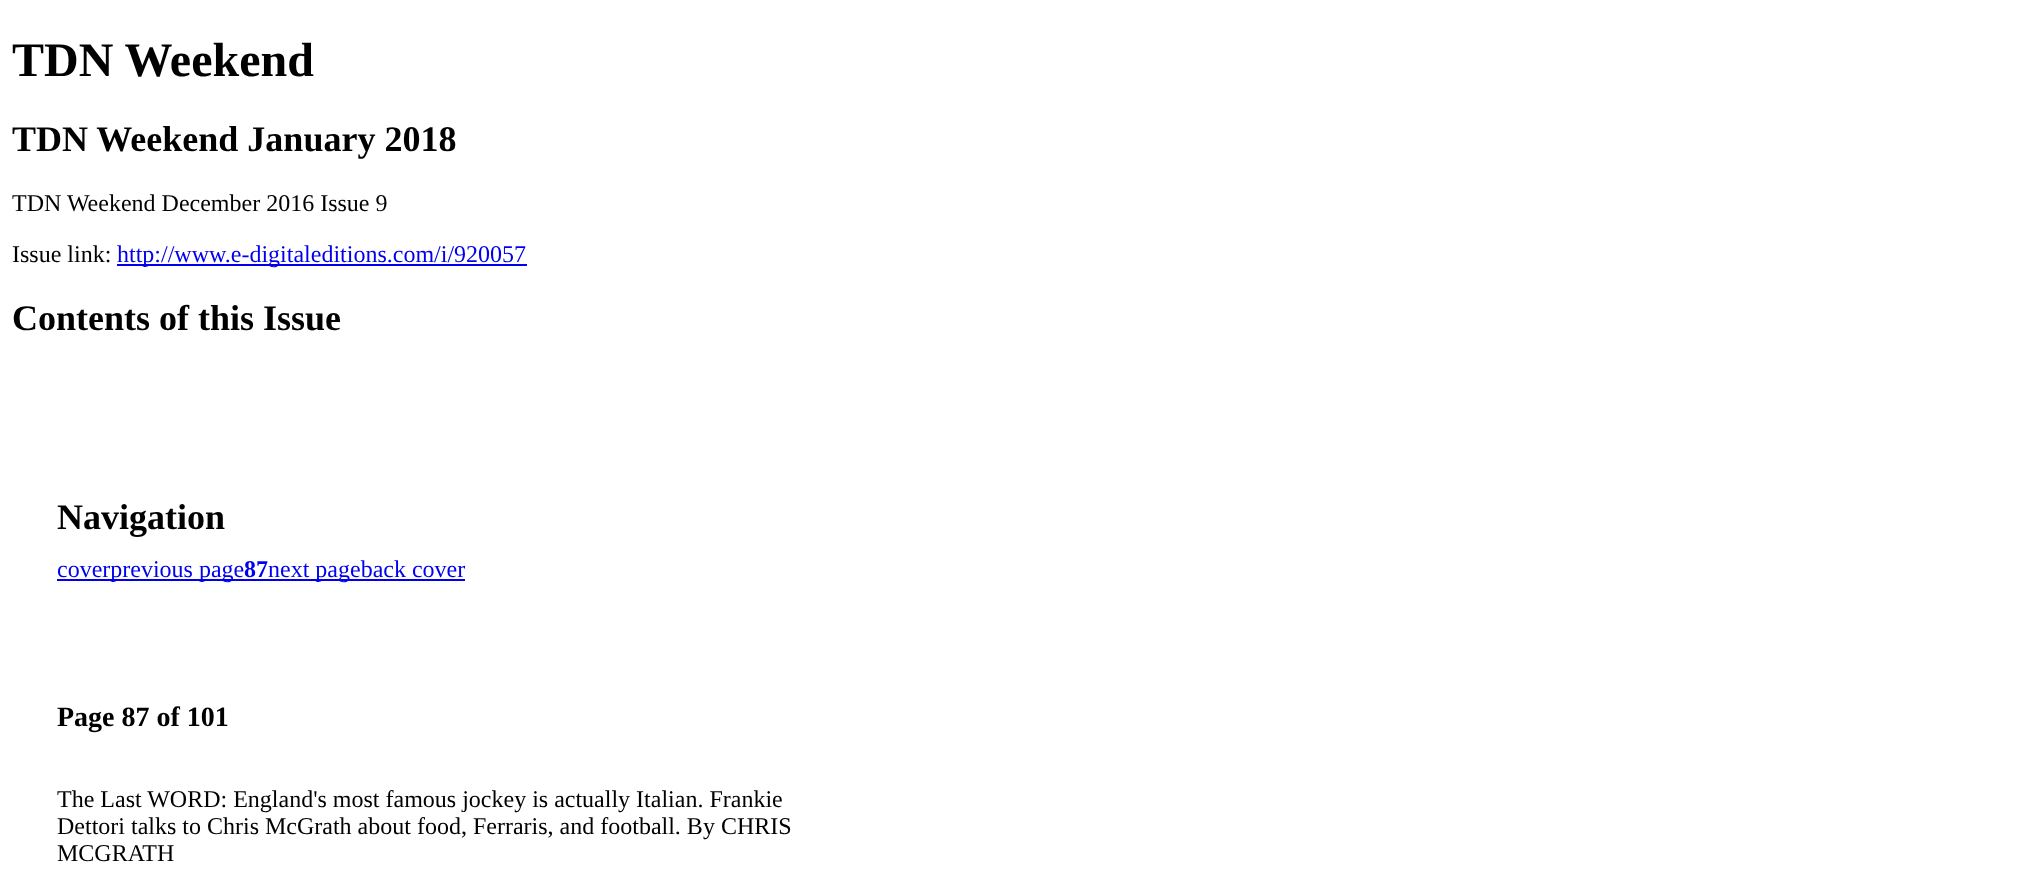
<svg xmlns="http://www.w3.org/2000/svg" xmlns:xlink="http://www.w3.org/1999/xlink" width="2028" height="894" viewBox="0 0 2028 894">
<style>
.cls-1{font:bold 48px Liberation Serif;fill:#000000}
.cls-2{font:bold 36px Liberation Serif;fill:#000000}
.cls-3{font:24px Liberation Serif;fill:#000000}
.cls-4{font:24px Liberation Serif;fill:#0000ee}
.cls-5{font:bold 24px Liberation Serif;fill:#0000ee}
.cls-6{font:bold 28px Liberation Serif;fill:#000000}
</style>
<rect width="100%" height="100%" fill="#ffffff"/>
<rect fill="#0000ee" x="117" y="264" width="410" height="2"/>
<rect fill="#0000ee" x="57" y="579" width="408" height="2"/>
<text class="cls-1" x="12" y="76">TDN Weekend</text>
<text class="cls-2" x="12" y="151">TDN Weekend January 2018</text>
<text class="cls-3" x="12" y="211">TDN Weekend December 2016 Issue 9</text>
<text class="cls-3" x="12" y="262">Issue link:</text>
<text class="cls-4" x="117" y="262">http://www.e-digitaleditions.com/i/920057</text>
<text class="cls-2" x="12" y="330">Contents of this Issue</text>
<text class="cls-2" x="57" y="529">Navigation</text>
<text class="cls-4" x="57" y="577">coverprevious page</text>
<text class="cls-5" x="244" y="577">87</text>
<text class="cls-4" x="268" y="577">next pageback cover</text>
<text class="cls-6" x="57" y="726">Page 87 of 101</text>
<text class="cls-3"><tspan x="57" y="807">The Last WORD: England's most famous jockey is actually Italian. Frankie</tspan><tspan x="57" y="834">Dettori talks to Chris McGrath about food, Ferraris, and football. By CHRIS</tspan><tspan x="57" y="861">MCGRATH</tspan></text>
</svg>
